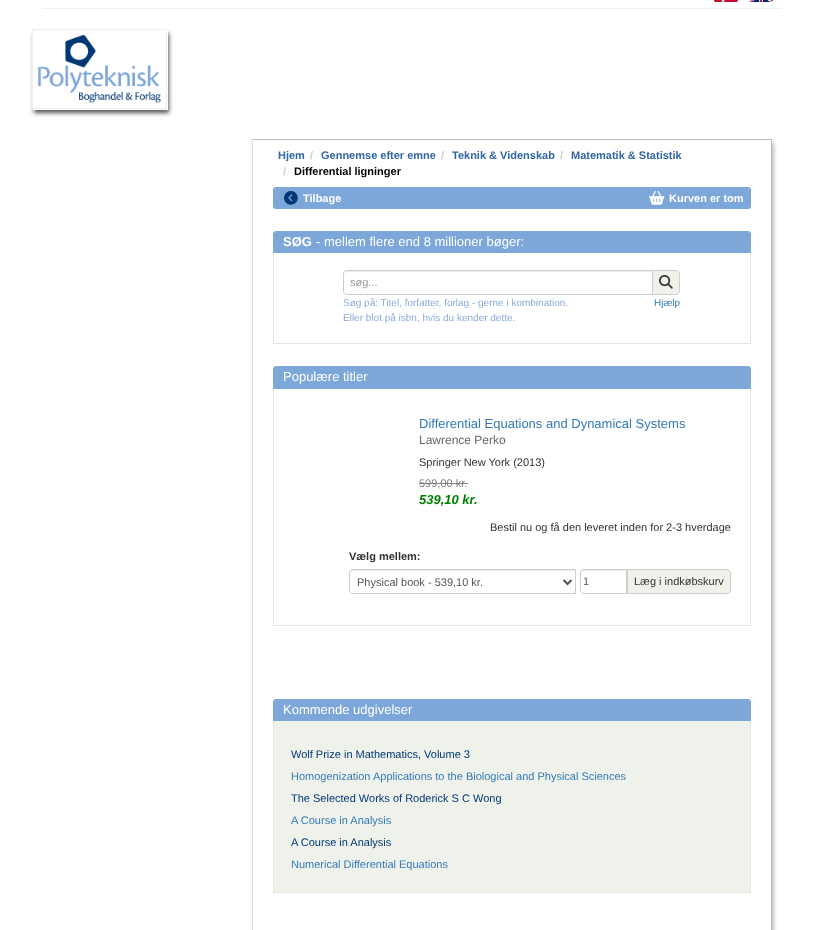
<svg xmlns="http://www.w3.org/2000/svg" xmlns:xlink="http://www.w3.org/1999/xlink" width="823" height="930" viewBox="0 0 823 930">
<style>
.cls-1{font:bold 11px Liberation Sans;fill:#3166a6}
.cls-2{font:bold 11px Liberation Sans;fill:#cccccc}
.cls-3{font:bold 11px Liberation Sans;fill:#000000}
.cls-4{font:bold 11px Liberation Sans;fill:#ffffff}
.cls-5{font:bold 13px Liberation Sans;fill:#ffffff}
.cls-6{font:13px Liberation Sans;fill:#ffffff}
.cls-7{font:11px Liberation Sans;fill:#999999}
.cls-8{font:10px Liberation Sans;fill:#8aaad9}
.cls-9{font:10px Liberation Sans;fill:#337ab7}
.cls-10{font:13px Liberation Sans;fill:#337ab7}
.cls-11{font:12px Liberation Sans;fill:#666666}
.cls-12{font:11px Liberation Sans;fill:#333333}
.cls-13{font:11px Liberation Sans;fill:#808080}
.cls-14{font:italic bold 13px Liberation Sans;fill:#008000}
.cls-15{font:bold 11px Liberation Sans;fill:#333333}
.cls-16{font:11px Liberation Sans;fill:#555555}
.cls-17{font:11px Liberation Sans;fill:#003775}
.cls-18{font:11px Liberation Sans;fill:#337ab7}
</style>
<defs>
<clipPath id="clip1"><path d="M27 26H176V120H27ZM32 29H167V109H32Z" clip-rule="evenodd"/></clipPath>
<clipPath id="clip2"><path d="M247 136H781V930H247ZM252 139H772V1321H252Z" clip-rule="evenodd"/></clipPath>
</defs>
<rect width="100%" height="100%" fill="#ffffff"/>
<rect fill="#eff2eb" x="42" y="8" width="740" height="1"/>
<image xlink:href="image0.png" x="714" y="0" width="24" height="2"/>
<image xlink:href="image1.png" x="749" y="0" width="24" height="2"/>
<g clip-path="url(#clip1)">
<rect fill="#555555" filter="blur(2px)" x="34" y="33" width="135" height="80"/>
</g>
<image xlink:href="image2.png" x="37" y="34" width="125" height="69"/>
<rect fill="none" stroke="#eeeeee" x="32.5" y="29.5" width="134" height="79"/>
<rect fill="none" stroke="#ffffff" x="33.5" y="30.5" width="134" height="79"/>
<g clip-path="url(#clip2)">
<rect fill="#797979" fill-opacity="0.5" filter="blur(2px)" x="254" y="143" width="520" height="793"/>
</g>
<rect fill="#bbbbbb" x="252" y="139" width="520" height="1"/>
<rect fill="#bbbbbb" x="771" y="139" width="1" height="791"/>
<rect fill="#dddddd" x="252" y="139" width="1" height="791"/>
<rect fill="#7da7d9" x="273" y="187" width="478" height="22" rx="3"/>
<image xlink:href="image3.png" x="284" y="191" width="14" height="14"/>
<image xlink:href="image4.png" x="649" y="191" width="16" height="14"/>
<path fill="#7da7d9" stroke="#7da7d9" d="M276 231.5H748C749.5 231.5 750.5 232.5 750.5 234V252.5H273.5V234C273.5 232.5 274.5 231.5 276 231.5Z"/>
<rect fill="#e3e8dc" x="750" y="253" width="1" height="91"/>
<rect fill="#e3e8dc" x="273" y="343" width="478" height="1"/>
<rect fill="#e3e8dc" x="273" y="253" width="1" height="91"/>
<path fill="#ececec" d="M347 272H652V271H347C345 271 344 273 344 275C344 273 345 272 347 272Z"/>
<path fill="none" stroke="#cccccc" d="M347 270.5H652.5V294.5H347C345 294.5 343.5 293 343.5 291V274C343.5 272 345 270.5 347 270.5Z"/>
<path fill="#eff2eb" stroke="#cccccc" d="M652.5 270.5H676C678 270.5 679.5 272 679.5 274V291C679.5 293 678 294.5 676 294.5H652.5Z"/>
<image xlink:href="image5.png" x="659" y="275" width="14" height="14"/>
<path fill="#7da7d9" stroke="#7da7d9" d="M276 366.5H748C749.5 366.5 750.5 367.5 750.5 369V388.5H273.5V369C273.5 367.5 274.5 366.5 276 366.5Z"/>
<rect fill="#e3e8dc" x="750" y="389" width="1" height="237"/>
<rect fill="#e3e8dc" x="273" y="625" width="478" height="1"/>
<rect fill="#e3e8dc" x="273" y="389" width="1" height="237"/>
<rect fill="#808080" x="419" y="483" width="49" height="1"/>
<path fill="#ececec" d="M353 571H575V570H353C351 570 350 572 350 573C350 572 351 571 353 571Z"/>
<path fill="none" stroke="#cccccc" d="M353 569.5H575.5V593.5H353C351 593.5 349.5 592 349.5 590V573C349.5 571 351 569.5 353 569.5Z"/>
<path fill="none" stroke="#555555" stroke-width="2" d="M563.5 580L567.5 584L571.5 580"/>
<path fill="#ececec" d="M584 571H626V570H584C582 570 581 571 581 573V574C581 572 582 571 584 571Z"/>
<path fill="none" stroke="#cccccc" d="M584 569.5H626.5V593.5H584C582 593.5 580.5 592 580.5 590V573C580.5 571 582 569.5 584 569.5Z"/>
<path fill="#eff2eb" stroke="#cccccc" d="M627.5 569.5H727C729 569.5 730.5 571 730.5 573V590C730.5 592 729 593.5 727 593.5H627.5Z"/>
<path fill="#7da7d9" stroke="#7da7d9" d="M276 699.5H748C749.5 699.5 750.5 700.5 750.5 702V720.5H273.5V702C273.5 700.5 274.5 699.5 276 699.5Z"/>
<rect fill="#eff2eb" x="274" y="721" width="476" height="171"/>
<rect fill="#e3e8dc" x="750" y="721" width="1" height="172"/>
<rect fill="#e3e8dc" x="273" y="892" width="478" height="1"/>
<rect fill="#e3e8dc" x="273" y="721" width="1" height="172"/>
<text class="cls-1" x="278" y="159">Hjem</text>
<text class="cls-2" x="310" y="159">/</text>
<text class="cls-1" x="321" y="159">Gennemse efter emne</text>
<text class="cls-2" x="441" y="159">/</text>
<text class="cls-1" x="452" y="159">Teknik &amp; Videnskab</text>
<text class="cls-2" x="560" y="159">/</text>
<text class="cls-1" x="571" y="159">Matematik &amp; Statistik</text>
<text class="cls-2" x="283" y="175">/</text>
<text class="cls-3" x="294" y="175">Differential ligninger</text>
<text class="cls-4" x="303" y="202">Tilbage</text>
<text class="cls-4" x="669" y="202">Kurven er tom</text>
<text class="cls-5" x="283" y="246">SØG</text>
<text class="cls-6" x="316" y="246">- mellem flere end 8 millioner bøger:</text>
<text class="cls-7" x="350" y="286">søg...</text>
<text class="cls-8"><tspan x="343" y="306">Søg på: Titel, forfatter, forlag - gerne i kombination.</tspan><tspan x="343" y="321">Eller blot på isbn, hvis du kender dette.</tspan></text>
<text class="cls-9" x="654" y="306">Hjælp</text>
<text class="cls-6" x="283" y="381">Populære titler</text>
<text class="cls-10" x="419" y="428">Differential Equations and Dynamical Systems</text>
<text class="cls-11" x="419" y="444">Lawrence Perko</text>
<text class="cls-12" x="419" y="466">Springer New York (2013)</text>
<text class="cls-13" x="419" y="487">599,00 kr.</text>
<text class="cls-14" x="419" y="504">539,10 kr.</text>
<text class="cls-12" x="490" y="531">Bestil nu og få den leveret inden for 2-3 hverdage</text>
<text class="cls-15" x="349" y="560">Vælg mellem:</text>
<text class="cls-16" x="357" y="586">Physical book - 539,10 kr.</text>
<text class="cls-16" x="583" y="585">1</text>
<text class="cls-12" x="634" y="585">Læg i indkøbskurv</text>
<text class="cls-6" x="283" y="714">Kommende udgivelser</text>
<text class="cls-17" x="291" y="758">Wolf Prize in Mathematics, Volume 3</text>
<text class="cls-18" x="291" y="780">Homogenization Applications to the Biological and Physical Sciences</text>
<text class="cls-17" x="291" y="802">The Selected Works of Roderick S C Wong</text>
<text class="cls-18" x="291" y="824">A Course in Analysis</text>
<text class="cls-17" x="291" y="846">A Course in Analysis</text>
<text class="cls-18" x="291" y="868">Numerical Differential Equations</text>
</svg>
